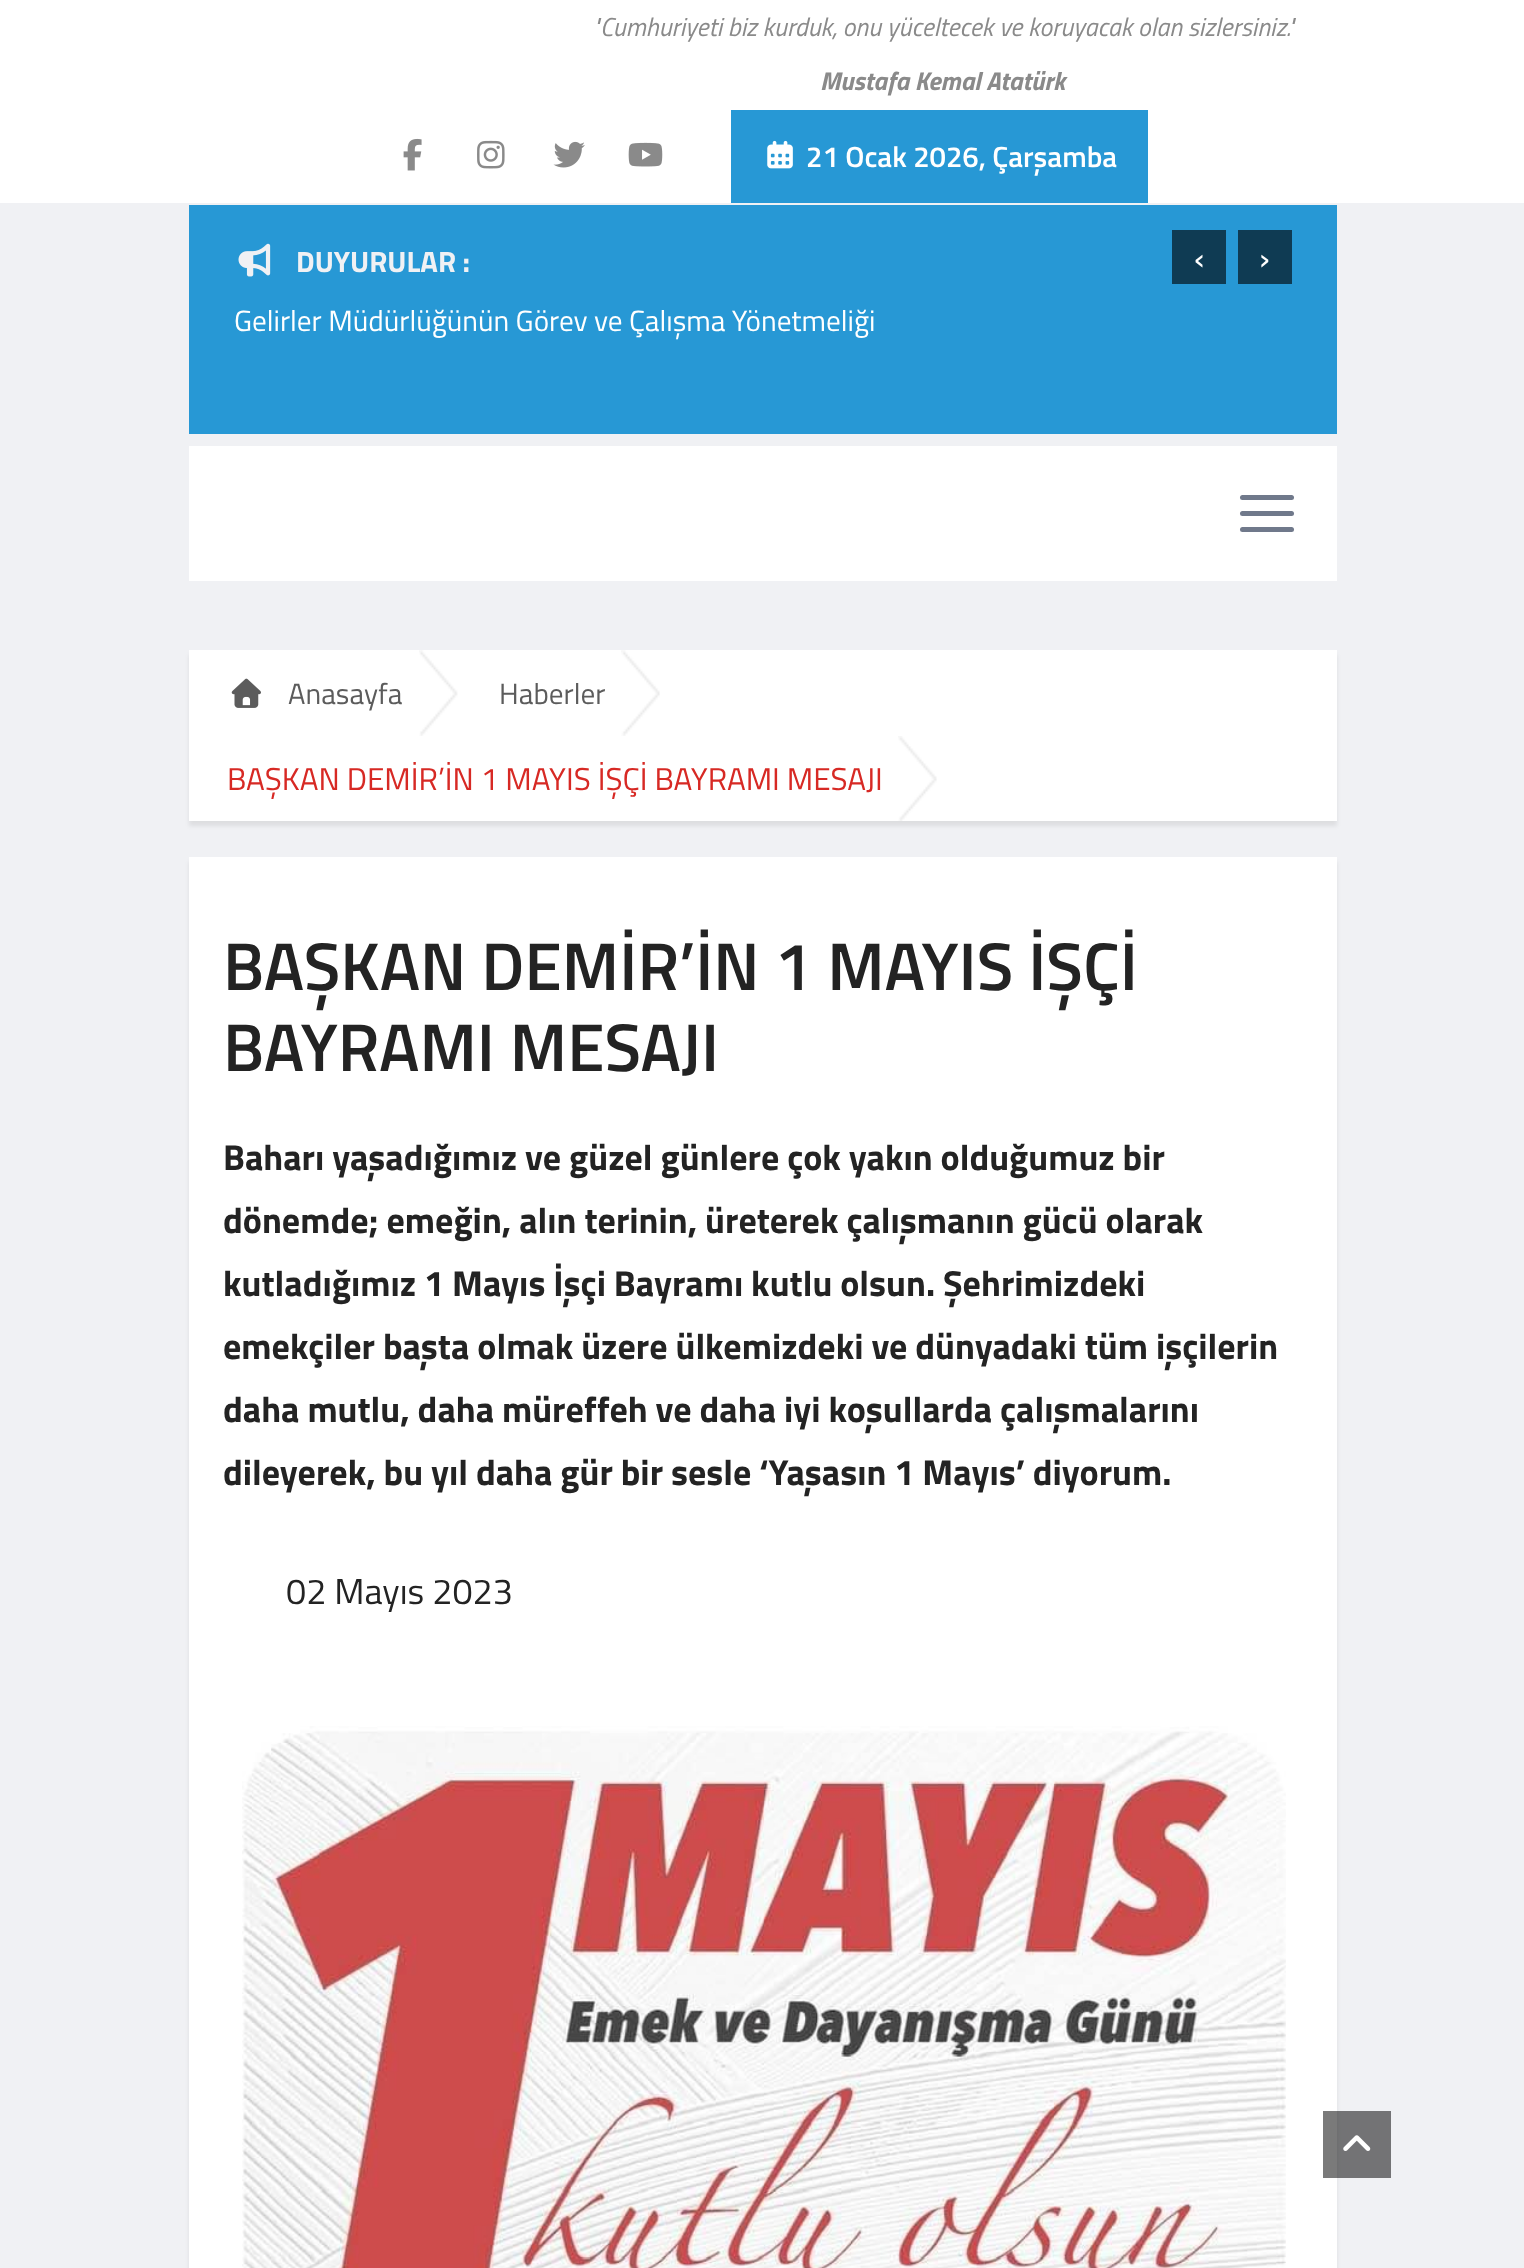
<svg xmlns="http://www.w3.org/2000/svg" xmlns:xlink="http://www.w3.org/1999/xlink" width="1524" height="2268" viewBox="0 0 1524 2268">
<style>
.cls-1{font:italic 25.9px Titillium Web;fill:#8a8a8a}
.cls-2{font:italic bold 25.9px Titillium Web;fill:#8a8a8a}
.cls-3{font:600 29.25px Titillium Web;fill:#ffffff}
.cls-4{font:bold 29.25px Titillium Web;fill:#f0f1f4}
.cls-5{font:36px Titillium Web;fill:#ffffff}
.cls-6{font:29.25px Titillium Web;fill:#ffffff}
.cls-7{font:29.25px Titillium Web;fill:#5c5c5c}
.cls-8{font:31.5px Titillium Web;fill:#d72924}
.cls-9{font:600 67.5px Titillium Web;fill:#232323}
.cls-10{font:bold 36px Titillium Web;fill:#232323}
.cls-11{font:36px Titillium Web;fill:#232323}
</style>
<rect width="100%" height="100%" fill="#f0f1f4"/>
<rect fill="#ffffff" x="0" y="0" width="1524" height="203"/>
<image xlink:href="image0.png" x="403" y="138" width="19" height="33"/>
<image xlink:href="image1.png" x="477" y="140" width="28" height="29"/>
<image xlink:href="image2.png" x="553" y="141" width="32" height="27"/>
<image xlink:href="image3.png" x="628" y="142" width="35" height="25"/>
<rect fill="#2798d5" x="731" y="110" width="417" height="93"/>
<image xlink:href="image4.png" x="767" y="140" width="26" height="29"/>
<rect fill="#2798d5" x="189" y="205" width="1148" height="229"/>
<image xlink:href="image5.png" x="238" y="243" width="33" height="34"/>
<rect fill="#0f3b53" x="1172" y="230" width="54" height="54"/>
<rect fill="#0f3b53" x="1238" y="230" width="54" height="54"/>
<rect fill="#ffffff" x="189" y="446" width="1148" height="135"/>
<rect fill="#70798b" x="1240" y="527" width="54" height="5" rx="2.5"/>
<rect fill="#70798b" x="1240" y="511" width="54" height="5" rx="2.5"/>
<rect fill="#70798b" x="1240" y="495" width="54" height="5" rx="2.5"/>
<rect fill="#000000" fill-opacity="0.08" filter="blur(2px)" x="189" y="655" width="1148" height="171"/>
<rect fill="#ffffff" x="189" y="650" width="1148" height="171"/>
<image xlink:href="image6.png" x="231" y="678" width="30" height="30"/>
<image xlink:href="image7.png" x="419" y="650" width="39" height="86"/>
<image xlink:href="image8.png" x="621" y="650" width="39" height="86"/>
<image xlink:href="image9.png" x="898" y="736" width="39" height="85"/>
<rect fill="#000000" fill-opacity="0.08" filter="blur(2px)" x="189" y="862" width="1148" height="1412"/>
<rect fill="#ffffff" x="189" y="857" width="1148" height="1411"/>
<image xlink:href="image10.png" x="242" y="1726" width="1044" height="542"/>
<rect fill="#000000" fill-opacity="0.52" x="1323" y="2111" width="68" height="67"/>
<image xlink:href="image11.png" x="1343" y="2135" width="28" height="16"/>
<text class="cls-1" x="592" y="36">"Cumhuriyeti biz kurduk, onu yüceltecek ve koruyacak olan sizlersiniz."</text>
<text class="cls-2" x="820" y="90">Mustafa Kemal Atatürk</text>
<text class="cls-3" x="806" y="167">21 Ocak 2026, Çarşamba</text>
<text class="cls-4" x="296" y="272">DUYURULAR :</text>
<text class="cls-5" x="1194" y="270">‹</text>
<text class="cls-5" x="1259" y="270">›</text>
<text class="cls-6" x="234" y="331">Gelirler Müdürlüğünün Görev ve Çalışma Yönetmeliği</text>
<text class="cls-7" x="288" y="704">Anasayfa</text>
<text class="cls-7" x="499" y="704">Haberler</text>
<text class="cls-8" x="227" y="790">BAŞKAN DEMİR’İN 1 MAYIS İŞÇİ BAYRAMI MESAJI</text>
<text class="cls-9"><tspan x="223" y="990">BAŞKAN DEMİR’İN 1 MAYIS İŞÇİ</tspan><tspan x="223" y="1071">BAYRAMI MESAJI</tspan></text>
<text class="cls-10"><tspan x="223" y="1170">Baharı yaşadığımız ve güzel günlere çok yakın olduğumuz bir</tspan><tspan x="223" y="1233">dönemde; emeğin, alın terinin, üreterek çalışmanın gücü olarak</tspan><tspan x="223" y="1296">kutladığımız 1 Mayıs İşçi Bayramı kutlu olsun. Şehrimizdeki</tspan><tspan x="223" y="1359">emekçiler başta olmak üzere ülkemizdeki ve dünyadaki tüm işçilerin</tspan><tspan x="223" y="1422">daha mutlu, daha müreffeh ve daha iyi koşullarda çalışmalarını</tspan><tspan x="223" y="1485">dileyerek, bu yıl daha gür bir sesle ‘Yaşasın 1 Mayıs’ diyorum.</tspan></text>
<text class="cls-11" x="286" y="1604">02 Mayıs 2023</text>
</svg>
